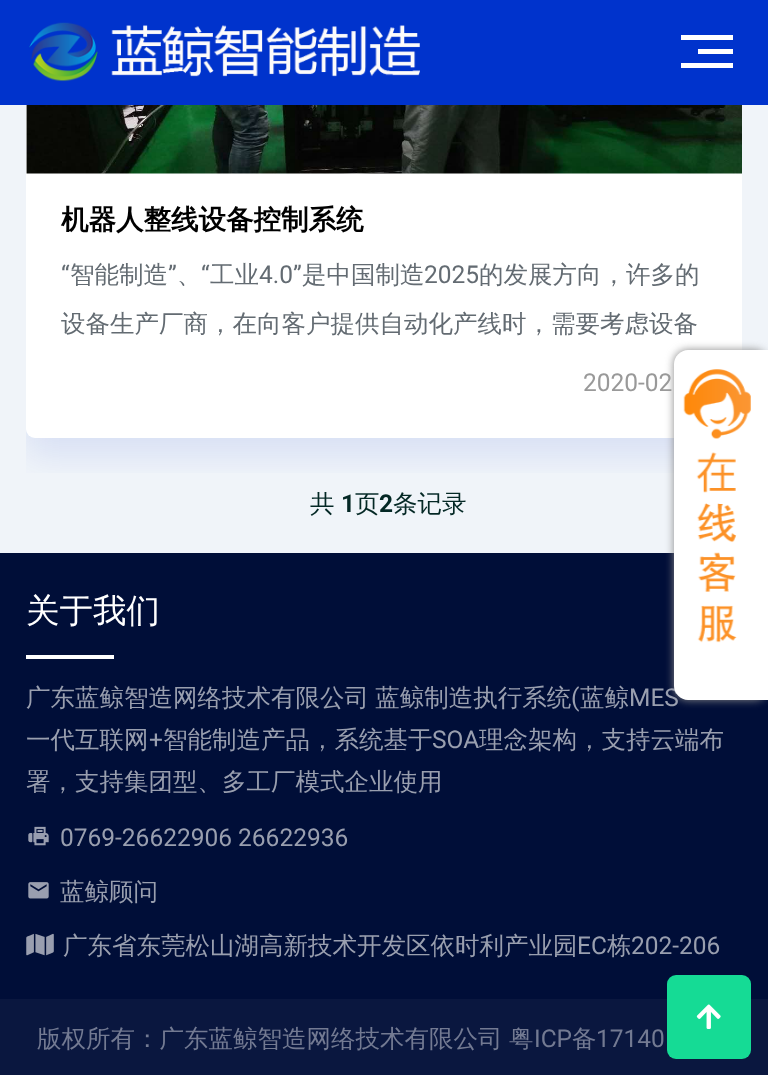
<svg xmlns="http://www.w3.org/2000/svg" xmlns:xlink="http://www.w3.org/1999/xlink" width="768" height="1075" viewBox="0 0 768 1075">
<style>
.cls-1{font:bold 27.5px WenQuanYi Zen Hei;fill:#000000}
.cls-2{font:24.5px Roboto;fill:#636b72}
.cls-3{font:500 24.5px WenQuanYi Zen Hei;fill:#636b72}
.cls-4{font:24.5px Roboto;fill:#999999}
.cls-5{font:500 24.5px WenQuanYi Zen Hei;fill:#042825}
.cls-6{font:bold 24.5px Roboto;fill:#042825}
.cls-7{font:500 33.5px WenQuanYi Zen Hei;fill:#ffffff}
.cls-8{font:500 24.5px WenQuanYi Zen Hei;fill:#999faf}
.cls-9{font:24.5px Roboto;fill:#999faf}
.cls-10{font:500 24.5px WenQuanYi Zen Hei;fill:#737a92}
.cls-11{font:24.5px Roboto;fill:#737a92}
</style>
<defs>
<clipPath id="clip1"><rect x="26" y="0" width="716" height="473"/></clipPath>
</defs>
<rect width="100%" height="100%" fill="#000e38"/>
<rect fill="#f0f4f9" x="0" y="105" width="768" height="448"/>
<g clip-path="url(#clip1)">
<rect fill="#0033cc" fill-opacity="0.1" filter="blur(17.5px)" x="26" y="-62" width="716" height="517" rx="9"/>
</g>
<rect fill="#ffffff" x="26" y="-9" width="716" height="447" rx="9"/>
<rect fill="#0033cc" x="0" y="0" width="768" height="105"/>
<rect fill="#ffffff" x="681" y="35" width="52" height="5"/>
<rect fill="#ffffff" x="698" y="49" width="35" height="5"/>
<rect fill="#ffffff" x="681" y="63" width="52" height="5"/>
<image xlink:href="image0.png" x="29" y="22" width="391" height="60"/>
<image xlink:href="image1.png" x="26" y="105" width="716" height="69"/>
<rect fill="#888888" filter="blur(4.5px)" x="674" y="350" width="94" height="350" rx="14"/>
<rect fill="#ffffff" x="26" y="655" width="88" height="4"/>
<image xlink:href="image3.png" x="28" y="826" width="21" height="20"/>
<image xlink:href="image4.png" x="28" y="882" width="21" height="17"/>
<image xlink:href="image5.png" x="26" y="933" width="28" height="23"/>
<rect fill="#0a173f" x="0" y="999" width="768" height="76"/>
<rect fill="#15db95" x="667" y="975" width="84" height="84" rx="9"/>
<image xlink:href="image6.png" x="696" y="1004" width="25" height="25"/>
<text class="cls-1" x="61" y="229">机器人整线设备控制系统</text>
<text class="cls-2" x="61" y="283">“</text>
<text class="cls-3" x="70" y="283">智能制造</text>
<text class="cls-2" x="168" y="283">”</text>
<text class="cls-3" x="177" y="283">、</text>
<text class="cls-2" x="201" y="283">“</text>
<text class="cls-3" x="210" y="283">工业</text>
<text class="cls-2" x="259" y="283">4.0”</text>
<text class="cls-3" x="302" y="283">是中国制造</text>
<text class="cls-2" x="424" y="283">2025</text>
<text class="cls-3" x="479" y="283">的发展方向，许多的</text>
<text class="cls-3" x="61" y="332">设备生产厂商，在向客户提供自动化产线时，需要考虑设备</text>
<text class="cls-4" x="583" y="391">2020-02</text>
<text class="cls-5" x="310" y="512">共</text>
<text class="cls-6" x="341" y="512">1</text>
<text class="cls-5" x="355" y="512">页</text>
<text class="cls-6" x="379" y="512">2</text>
<text class="cls-5" x="393" y="512">条记录</text>
<text class="cls-7" x="26" y="622">关于我们</text>
<text class="cls-8" x="26" y="706" word-spacing="-1">广东蓝鲸智造网络技术有限公司 蓝鲸制造执行系统</text>
<text class="cls-9" x="571" y="706">(</text>
<text class="cls-8" x="580" y="706">蓝鲸</text>
<text class="cls-9" x="629" y="706">MES</text>
<path fill="#ffffff" d="M688 350H768V700H688C680.5 700 674 693.5 674 686V364C674 356.5 680.5 350 688 350Z"/>
<image xlink:href="image2.png" x="683" y="369" width="68" height="274"/>
<text class="cls-8" x="26" y="748">一代互联网</text>
<text class="cls-9" x="149" y="748">+</text>
<text class="cls-8" x="163" y="748">智能制造产品，系统基于</text>
<text class="cls-9" x="432" y="748">SOA</text>
<text class="cls-8" x="479" y="748">理念架构，支持云端布</text>
<text class="cls-8" x="26" y="790">署，支持集团型、多工厂模式企业使用</text>
<text class="cls-9" x="60" y="846">0769-26622906 26622936</text>
<text class="cls-8" x="60" y="900">蓝鲸顾问</text>
<text class="cls-8" x="63" y="954">广东省东莞松山湖高新技术开发区依时利产业园</text>
<text class="cls-9" x="577" y="954">EC</text>
<text class="cls-8" x="607" y="954">栋</text>
<text class="cls-9" x="631" y="954">202-206</text>
<text class="cls-10" x="37" y="1047">版权所有：广东蓝鲸智造网络技术有限公司</text>
<text class="cls-10" x="509" y="1047">粤</text>
<text class="cls-11" x="534" y="1047">ICP</text>
<text class="cls-10" x="572" y="1047">备</text>
<text class="cls-11" x="596" y="1047">17140</text>
</svg>
